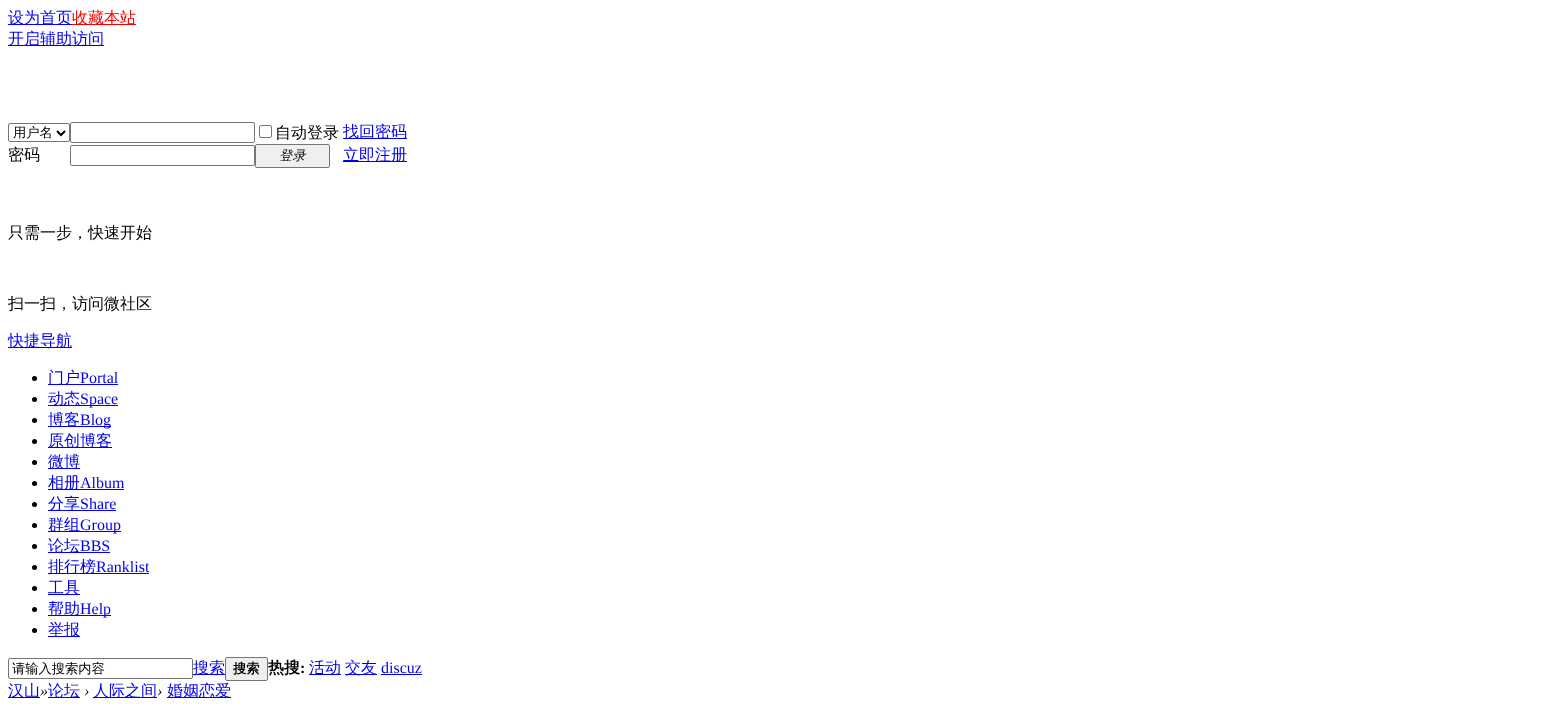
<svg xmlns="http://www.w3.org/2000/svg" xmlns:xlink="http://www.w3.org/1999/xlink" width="1552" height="704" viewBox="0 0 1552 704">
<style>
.cls-1{font:500 16px WenQuanYi Zen Hei;fill:#0000ff}
.cls-2{font:500 16px WenQuanYi Zen Hei;fill:#ff0000}
.cls-3{font:500 16px WenQuanYi Zen Hei;fill:#0000ee}
.cls-4{font:500 13.25px WenQuanYi Zen Hei;fill:#000000}
.cls-5{font:500 16px WenQuanYi Zen Hei;fill:#000000}
.cls-6{font:italic 500 13.25px WenQuanYi Zen Hei;fill:#000000}
.cls-7{font:16px Liberation Serif;fill:#0000ee}
.cls-8{font:bold 13.25px WenQuanYi Zen Hei;fill:#000000}
.cls-9{font:bold 16px WenQuanYi Zen Hei;fill:#000000}
.cls-10{font:bold 16px Liberation Serif;fill:#000000}
.cls-11{font:italic 16px Liberation Serif;fill:#000000}
</style>
<rect width="100%" height="100%" fill="#ffffff"/>
<rect fill="#0000ff" x="8" y="24" width="64" height="1"/>
<rect fill="#ff0000" x="72" y="24" width="64" height="1"/>
<rect fill="#0000ee" x="8" y="45" width="96" height="1"/>
<rect fill="none" stroke="#767676" x="8.5" y="123.5" width="61" height="18" rx="1.5"/>
<path fill="none" stroke="#000000" stroke-width="2" d="M57 131L61 135L65 131"/>
<rect fill="none" stroke="#767676" x="70.5" y="122.5" width="184" height="20" rx="1.5"/>
<rect fill="none" stroke="#767676" x="259.5" y="125.5" width="12" height="12" rx="1.5"/>
<rect fill="#0000ee" x="343" y="138" width="64" height="1"/>
<rect fill="none" stroke="#767676" x="70.5" y="145.5" width="184" height="20" rx="1.5"/>
<rect fill="#efefef" stroke="#767676" x="255.5" y="144.5" width="74" height="23" rx="1.5"/>
<rect fill="#0000ee" x="343" y="161" width="64" height="1"/>
<rect fill="#0000ee" x="8" y="347" width="64" height="1"/>
<circle fill="#000000" cx="34.5" cy="378.5" r="2.5"/>
<rect fill="#0000ee" x="48" y="384" width="70" height="1"/>
<circle fill="#000000" cx="34.5" cy="399.5" r="2.5"/>
<rect fill="#0000ee" x="48" y="405" width="70" height="1"/>
<circle fill="#000000" cx="34.5" cy="420.5" r="2.5"/>
<rect fill="#0000ee" x="48" y="426" width="63" height="1"/>
<circle fill="#000000" cx="34.5" cy="441.5" r="2.5"/>
<rect fill="#0000ee" x="48" y="447" width="64" height="1"/>
<circle fill="#000000" cx="34.5" cy="462.5" r="2.5"/>
<rect fill="#0000ee" x="48" y="468" width="32" height="1"/>
<circle fill="#000000" cx="34.5" cy="483.5" r="2.5"/>
<rect fill="#0000ee" x="48" y="489" width="76" height="1"/>
<circle fill="#000000" cx="34.5" cy="504.5" r="2.5"/>
<rect fill="#0000ee" x="48" y="510" width="68" height="1"/>
<circle fill="#000000" cx="34.5" cy="525.5" r="2.5"/>
<rect fill="#0000ee" x="48" y="531" width="73" height="1"/>
<circle fill="#000000" cx="34.5" cy="546.5" r="2.5"/>
<rect fill="#0000ee" x="48" y="552" width="62" height="1"/>
<circle fill="#000000" cx="34.5" cy="567.5" r="2.5"/>
<rect fill="#0000ee" x="48" y="573" width="101" height="1"/>
<circle fill="#000000" cx="34.5" cy="588.5" r="2.5"/>
<rect fill="#0000ee" x="48" y="594" width="32" height="1"/>
<circle fill="#000000" cx="34.5" cy="609.5" r="2.5"/>
<rect fill="#0000ee" x="48" y="615" width="63" height="1"/>
<circle fill="#000000" cx="34.5" cy="630.5" r="2.5"/>
<rect fill="#0000ee" x="48" y="636" width="32" height="1"/>
<rect fill="none" stroke="#767676" x="8.5" y="658.5" width="184" height="20" rx="1.5"/>
<rect fill="#0000ee" x="193" y="674" width="32" height="1"/>
<rect fill="#efefef" stroke="#767676" x="225.5" y="657.5" width="42" height="23" rx="1.5"/>
<rect fill="#0000ee" x="309" y="674" width="32" height="1"/>
<rect fill="#0000ee" x="345" y="674" width="32" height="1"/>
<rect fill="#0000ee" x="381" y="674" width="41" height="1"/>
<rect fill="#0000ee" x="8" y="697" width="32" height="1"/>
<rect fill="#0000ee" x="48" y="697" width="32" height="1"/>
<rect fill="#0000ee" x="93" y="697" width="64" height="1"/>
<rect fill="#0000ee" x="167" y="697" width="64" height="1"/>
<text class="cls-1" x="8" y="23">设为首页</text>
<text class="cls-2" x="72" y="23">收藏本站</text>
<text class="cls-3" x="8" y="44">开启辅助访问</text>
<text class="cls-4" x="13" y="137">用户名</text>
<text class="cls-5" x="275" y="138">自动登录</text>
<text class="cls-3" x="343" y="137">找回密码</text>
<text class="cls-5" x="8" y="160">密码</text>
<text class="cls-6" x="279" y="160">登录</text>
<text class="cls-3" x="343" y="160">立即注册</text>
<text class="cls-5" x="8" y="238">只需一步，快速开始</text>
<text class="cls-5" x="8" y="309">扫一扫，访问微社区</text>
<text class="cls-3" x="8" y="346">快捷导航</text>
<text class="cls-3" x="48" y="383">门户</text>
<text class="cls-7" x="80" y="383">Portal</text>
<text class="cls-3" x="48" y="404">动态</text>
<text class="cls-7" x="80" y="404">Space</text>
<text class="cls-3" x="48" y="425">博客</text>
<text class="cls-7" x="80" y="425">Blog</text>
<text class="cls-3"><tspan x="48" y="446">原创博客</tspan><tspan x="48" y="467">微博</tspan><tspan x="48" y="488">相册</tspan></text>
<text class="cls-7" x="80" y="488">Album</text>
<text class="cls-3" x="48" y="509">分享</text>
<text class="cls-7" x="80" y="509">Share</text>
<text class="cls-3" x="48" y="530">群组</text>
<text class="cls-7" x="80" y="530">Group</text>
<text class="cls-3" x="48" y="551">论坛</text>
<text class="cls-7" x="80" y="551">BBS</text>
<text class="cls-3" x="48" y="572">排行榜</text>
<text class="cls-7" x="96" y="572">Ranklist</text>
<text class="cls-3"><tspan x="48" y="593">工具</tspan><tspan x="48" y="614">帮助</tspan></text>
<text class="cls-7" x="80" y="614">Help</text>
<text class="cls-3" x="48" y="635">举报</text>
<text class="cls-4" x="12" y="673">请输入搜索内容</text>
<text class="cls-3" x="193" y="673">搜索</text>
<text class="cls-8" x="233" y="673">搜索</text>
<text class="cls-9" x="268" y="673">热搜</text>
<text class="cls-10" x="300" y="673">:</text>
<text class="cls-3" x="309" y="673">活动</text>
<text class="cls-3" x="345" y="673">交友</text>
<text class="cls-7" x="381" y="673">discuz</text>
<text class="cls-3" x="8" y="696">汉山</text>
<text class="cls-11" x="40" y="696">»</text>
<text class="cls-3" x="48" y="696">论坛</text>
<text class="cls-11" x="84" y="696">›</text>
<text class="cls-3" x="93" y="696">人际之间</text>
<text class="cls-11" x="157" y="696">›</text>
<text class="cls-3" x="167" y="696">婚姻恋爱</text>
</svg>
